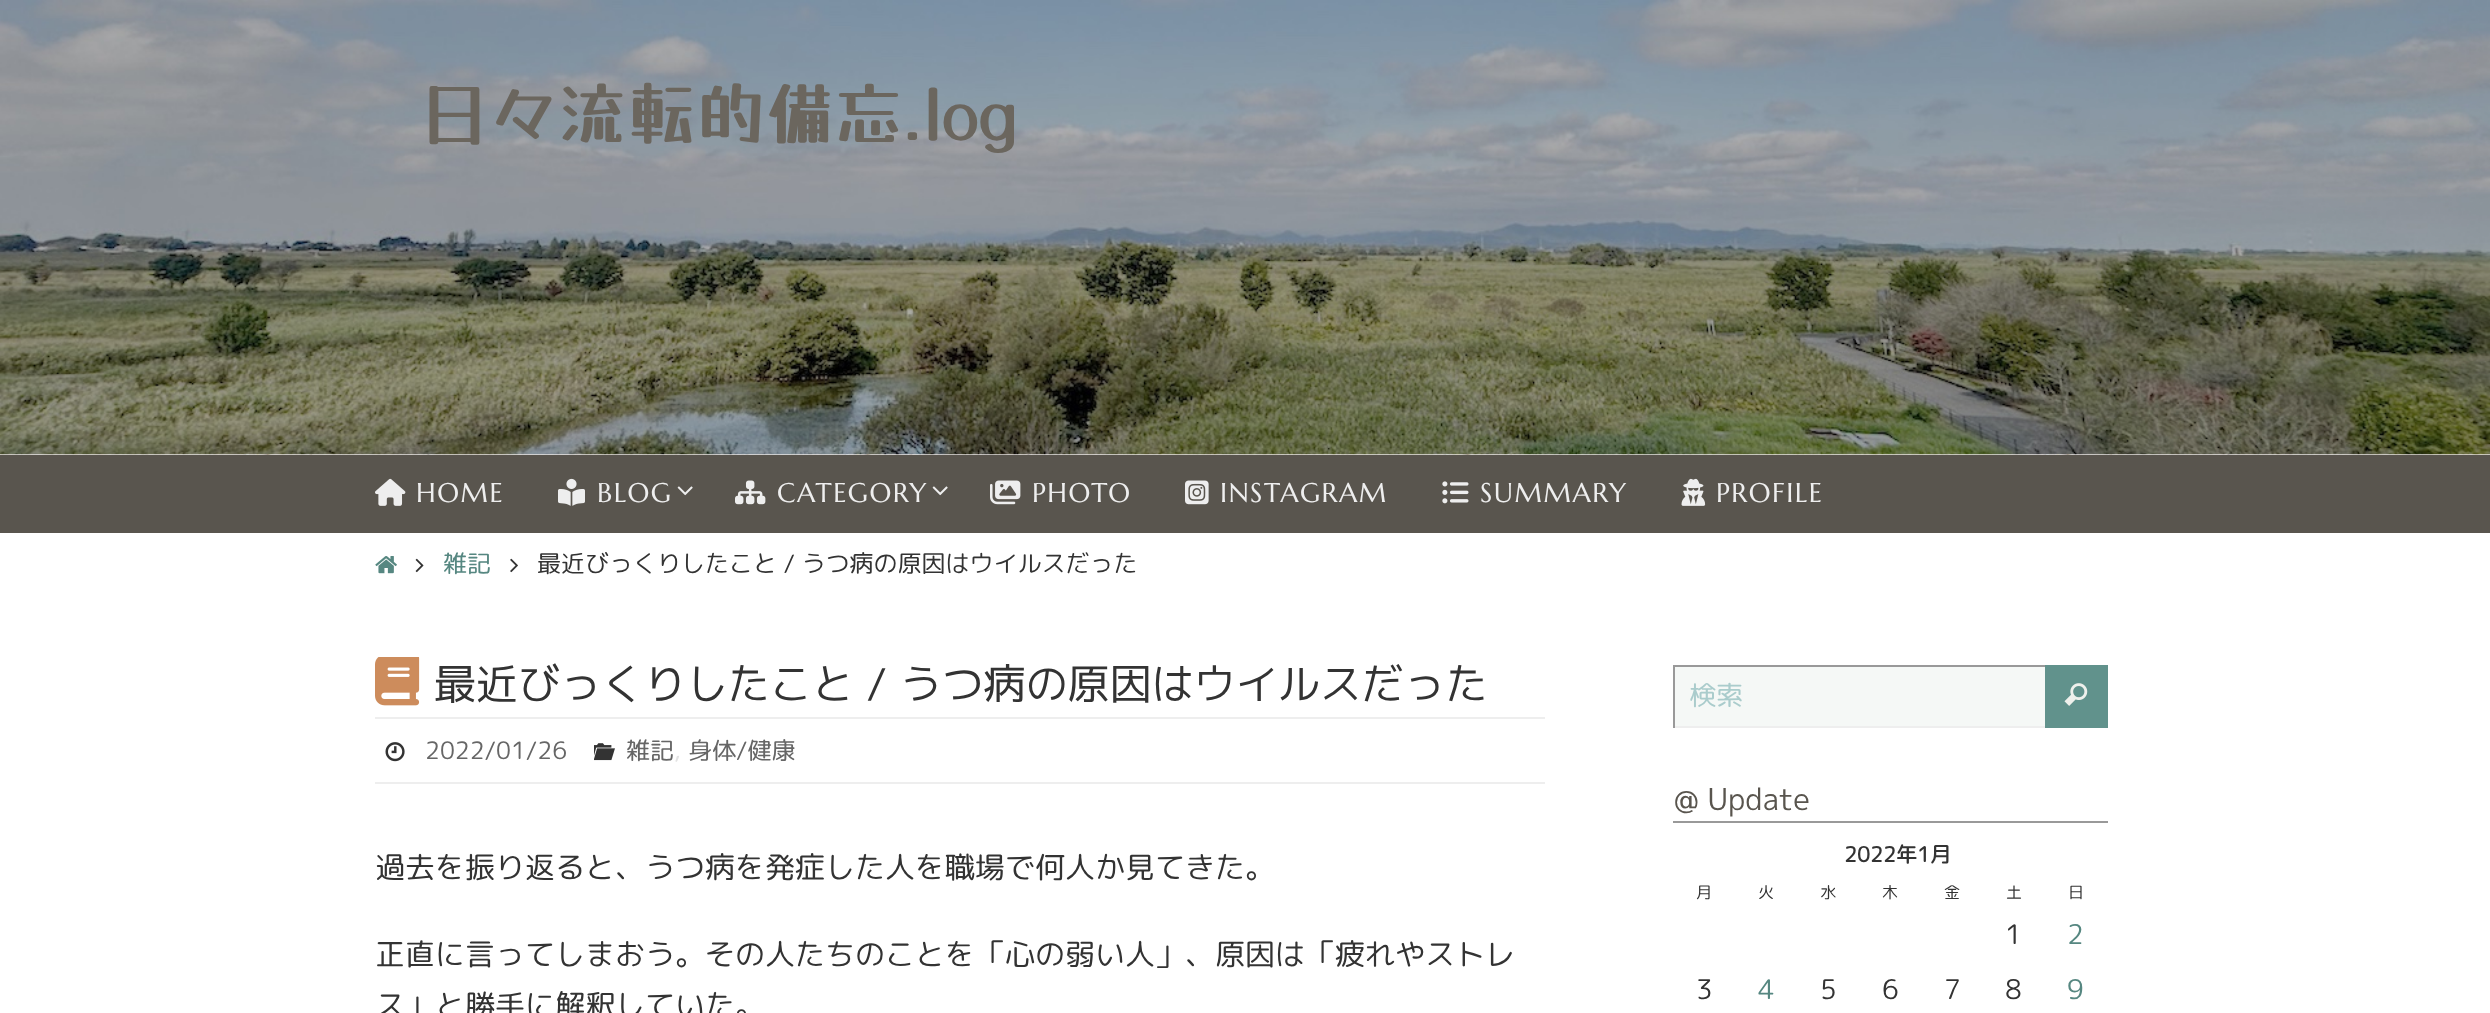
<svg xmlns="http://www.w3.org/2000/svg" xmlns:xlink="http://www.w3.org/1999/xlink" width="2490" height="1013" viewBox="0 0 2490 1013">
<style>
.cls-1{font:69px Yusei Magic;fill:#6b665e}
.cls-2{font:27px Marcellus;letter-spacing:1.5px;fill:#eeeeee}
.cls-3{font:24px 'Rounded Mplus 1c';fill:#568781}
.cls-4{font:24px 'Rounded Mplus 1c';fill:#333333}
.cls-5{font:42px 'M PLUS 1p';fill:#333333}
.cls-6{font:24px 'Rounded Mplus 1c';fill:#666666}
.cls-7{font:24px 'Rounded Mplus 1c';fill:#e3e3e3}
.cls-8{font:30px 'Rounded Mplus 1c';fill:#333333}
.cls-9{font:27px 'Rounded Mplus 1c';fill:#aacccc}
.cls-10{font:30px 'M PLUS 1p';fill:#59554e}
.cls-11{font:bold 21px 'Rounded Mplus 1c';fill:#333333}
.cls-12{font:16px 'Rounded Mplus 1c';fill:#333333}
.cls-13{font:27px 'Rounded Mplus 1c';fill:#333333}
.cls-14{font:27px 'Rounded Mplus 1c';fill:#568781}
</style>
<rect width="100%" height="100%" fill="#ffffff"/>
<image xlink:href="image0.png" x="0" y="454" width="2490" height="1"/>
<image xlink:href="image1.png" x="0" y="0" width="2490" height="455"/>
<rect fill="#59554e" x="0" y="455" width="2490" height="78"/>
<image xlink:href="image2.png" x="375" y="478" width="31" height="28"/>
<image xlink:href="image3.png" x="558" y="478" width="27" height="28"/>
<image xlink:href="image4.png" x="677" y="486" width="16" height="10"/>
<image xlink:href="image5.png" x="735" y="480" width="31" height="25"/>
<image xlink:href="image4.png" x="932" y="486" width="16" height="10"/>
<image xlink:href="image6.png" x="990" y="480" width="31" height="25"/>
<image xlink:href="image7.png" x="1185" y="480" width="24" height="25"/>
<image xlink:href="image8.png" x="1442" y="481" width="27" height="23"/>
<image xlink:href="image9.png" x="1681" y="478" width="25" height="28"/>
<image xlink:href="image10.png" x="375" y="556" width="22" height="18"/>
<image xlink:href="image11.png" x="415" y="558" width="9" height="15"/>
<image xlink:href="image12.png" x="510" y="558" width="8" height="15"/>
<image xlink:href="image13.png" x="375" y="657" width="45" height="49"/>
<rect fill="#eeeeee" x="375" y="717" width="1170" height="2"/>
<rect fill="#eeeeee" x="375" y="782" width="1170" height="2"/>
<image xlink:href="image14.png" x="385" y="742" width="20" height="20"/>
<image xlink:href="image15.png" x="594" y="743" width="21" height="18"/>
<rect fill="#f5f8f6" x="1675" y="667" width="370" height="59"/>
<rect fill="#999999" x="1673" y="665" width="372" height="2"/>
<rect fill="#eeeeee" x="1673" y="726" width="372" height="2"/>
<rect fill="#999999" x="1673" y="665" width="2" height="63"/>
<rect fill="#61928c" x="2045" y="665" width="63" height="63"/>
<image xlink:href="image16.png" x="2064" y="683" width="24" height="23"/>
<rect fill="#999999" x="1673" y="821" width="435" height="2"/>
<text class="cls-1" x="420" y="140">日々流転的備忘.log</text>
<text class="cls-2" x="416" y="502">HOME</text>
<text class="cls-2" x="597" y="502">BLOG</text>
<text class="cls-2" x="777" y="502">CATEGORY</text>
<text class="cls-2" x="1032" y="502">PHOTO</text>
<text class="cls-2" x="1220" y="502">INSTAGRAM</text>
<text class="cls-2" x="1480" y="502">SUMMARY</text>
<text class="cls-2" x="1716" y="502">PROFILE</text>
<text class="cls-3" x="443" y="572">雑記</text>
<text class="cls-4" x="537" y="572">最近びっくりしたこと / うつ病の原因はウイルスだった</text>
<text class="cls-5" x="434" y="699">最近びっくりしたこと / うつ病の原因はウイルスだった</text>
<text class="cls-6" x="425" y="759">2022/01/26</text>
<text class="cls-6" x="626" y="759">雑記</text>
<text class="cls-7" x="674" y="759">,</text>
<text class="cls-6" x="688" y="759">身体/健康</text>
<text class="cls-8" x="375" y="878">過去を振り返ると、うつ病を発症した人を職場で何人か見てきた。</text>
<text class="cls-8"><tspan x="375" y="965">正直に言ってしまおう。その人たちのことを「心の弱い人」、原因は「疲れやストレ</tspan><tspan x="375" y="1016">ス」と勝手に解釈していた。</tspan></text>
<text class="cls-9" x="1689" y="705">検索</text>
<text class="cls-10" x="1674" y="810">@ Update</text>
<text class="cls-11" x="1844" y="862">2022年1月</text>
<text class="cls-12" x="1696" y="898">月</text>
<text class="cls-12" x="1758" y="898">火</text>
<text class="cls-12" x="1820" y="898">水</text>
<text class="cls-12" x="1882" y="898">木</text>
<text class="cls-12" x="1944" y="898">金</text>
<text class="cls-12" x="2006" y="898">土</text>
<text class="cls-12" x="2068" y="898">日</text>
<text class="cls-13" x="2005" y="944">1</text>
<text class="cls-14" x="2067" y="944">2</text>
<text class="cls-13" x="1696" y="999">3</text>
<text class="cls-14" x="1758" y="999">4</text>
<text class="cls-13" x="1820" y="999">5</text>
<text class="cls-13" x="1882" y="999">6</text>
<text class="cls-13" x="1944" y="999">7</text>
<text class="cls-13" x="2005" y="999">8</text>
<text class="cls-14" x="2067" y="999">9</text>
</svg>
